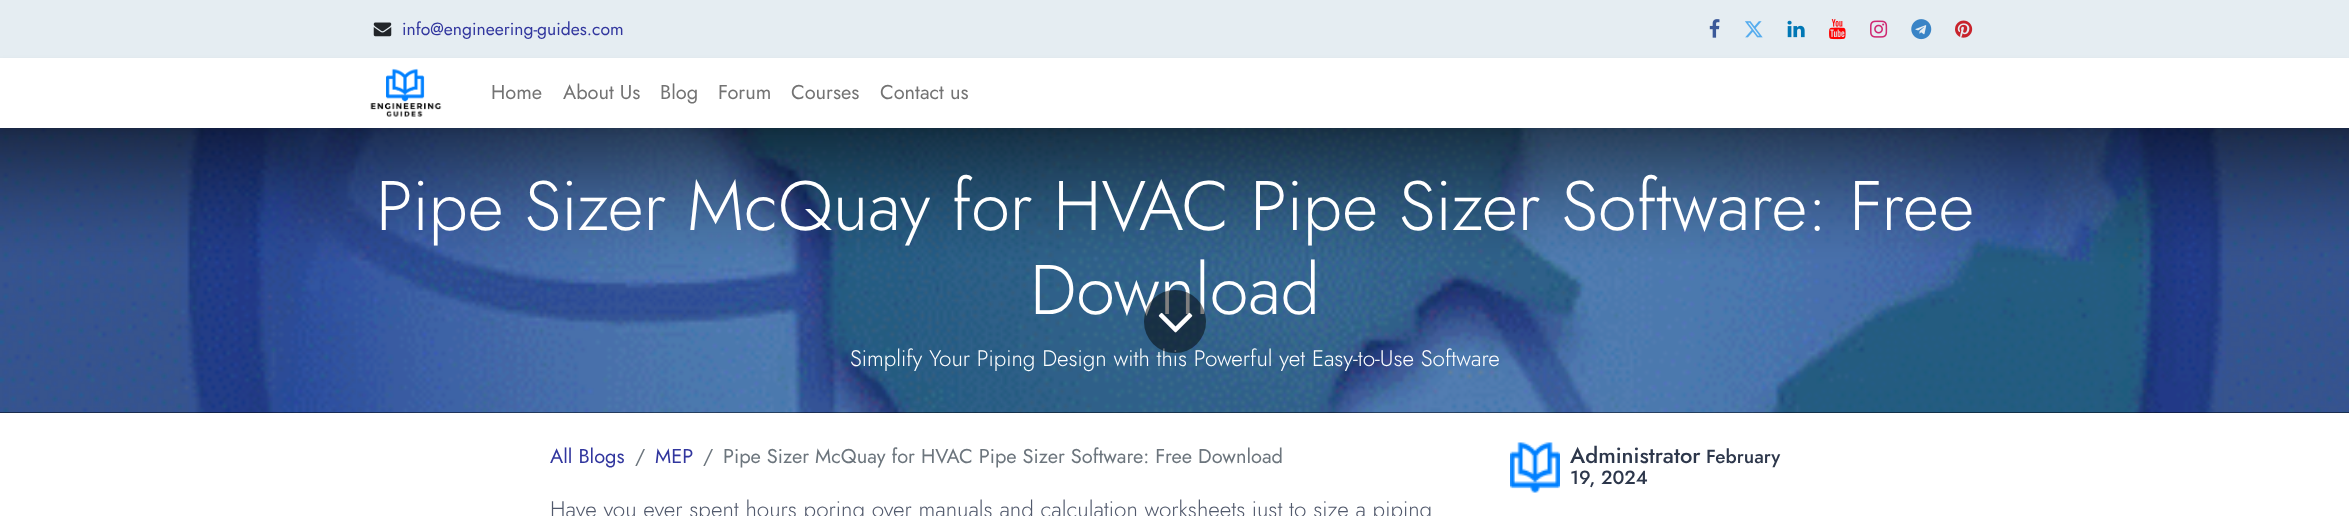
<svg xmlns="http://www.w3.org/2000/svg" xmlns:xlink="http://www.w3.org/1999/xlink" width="2349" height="516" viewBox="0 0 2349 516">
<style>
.cls-1{font:17.5px Jost;fill:#31369e}
.cls-2{font:20px Jost;fill:#737373}
.cls-3{font:300 70px Jost;fill:#ffffff}
.cls-4{font:300 22.5px Jost;fill:#ffffff}
.cls-5{font:20px Jost;fill:#31369e}
.cls-6{font:20px Jost;fill:#6c757d}
.cls-7{font:300 22.5px Jost;fill:#51596c}
.cls-8{font:500 22px Jost;fill:#2d374b}
.cls-9{font:500 19px Jost;fill:#2d374b}
</style>
<rect width="100%" height="100%" fill="#ffffff"/>
<rect fill="#e5edf2" x="0" y="0" width="2349" height="58"/>
<image xlink:href="image0.png" x="373" y="22" width="19" height="15"/>
<image xlink:href="image1.png" x="1709" y="19" width="11" height="19"/>
<image xlink:href="image2.png" x="1745" y="21" width="18" height="17"/>
<image xlink:href="image3.png" x="1787" y="20" width="18" height="18"/>
<image xlink:href="image4.png" x="1829" y="19" width="17" height="21"/>
<image xlink:href="image5.png" x="1870" y="20" width="18" height="18"/>
<image xlink:href="image6.png" x="1911" y="19" width="21" height="21"/>
<image xlink:href="image7.png" x="1955" y="20" width="18" height="18"/>
<rect fill="#000710" x="0" y="412" width="2349" height="1"/>
<image xlink:href="image9.png" x="0" y="128" width="2349" height="285"/>
<rect fill="#000000" fill-opacity="0.07" filter="blur(2.5px)" x="0" y="60" width="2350" height="70"/>
<rect fill="#ffffff" x="0" y="58" width="2349" height="70"/>
<image xlink:href="image8.png" x="370" y="68" width="72" height="49"/>
<image xlink:href="image11.png" x="1510" y="442" width="50" height="51"/>
<text class="cls-1" x="402" y="35">info@engineering-guides.com</text>
<text class="cls-2" x="491" y="99">Home</text>
<text class="cls-2" x="563" y="99">About Us</text>
<text class="cls-2" x="660" y="99">Blog</text>
<text class="cls-2" x="718" y="99">Forum</text>
<text class="cls-2" x="791" y="99">Courses</text>
<text class="cls-2" x="880" y="99">Contact us</text>
<text class="cls-3" x="376" y="230">Pipe Sizer McQuay for HVAC Pipe Sizer Software: Free</text>
<text class="cls-3" x="1030" y="314">Download</text>
<text class="cls-4" x="850" y="366">Simplify Your Piping Design with this Powerful yet Easy-to-Use Software</text>
<rect fill="#000000" fill-opacity="0.5" x="1144" y="290" width="62" height="63" rx="31"/>
<image xlink:href="image10.png" x="1158" y="312" width="35" height="21"/>
<text class="cls-5" x="550" y="463">All Blogs</text>
<text class="cls-6" x="635" y="463">/</text>
<text class="cls-5" x="655" y="463">MEP</text>
<text class="cls-6" x="703" y="463">/</text>
<text class="cls-6" x="723" y="463">Pipe Sizer McQuay for HVAC Pipe Sizer Software: Free Download</text>
<text class="cls-7" x="550" y="517">Have you ever spent hours poring over manuals and calculation worksheets just to size a piping</text>
<text class="cls-8" x="1570" y="463">Administrator</text>
<text class="cls-9" x="1706" y="463">February</text>
<text class="cls-9" x="1570" y="484">19, 2024</text>
</svg>
